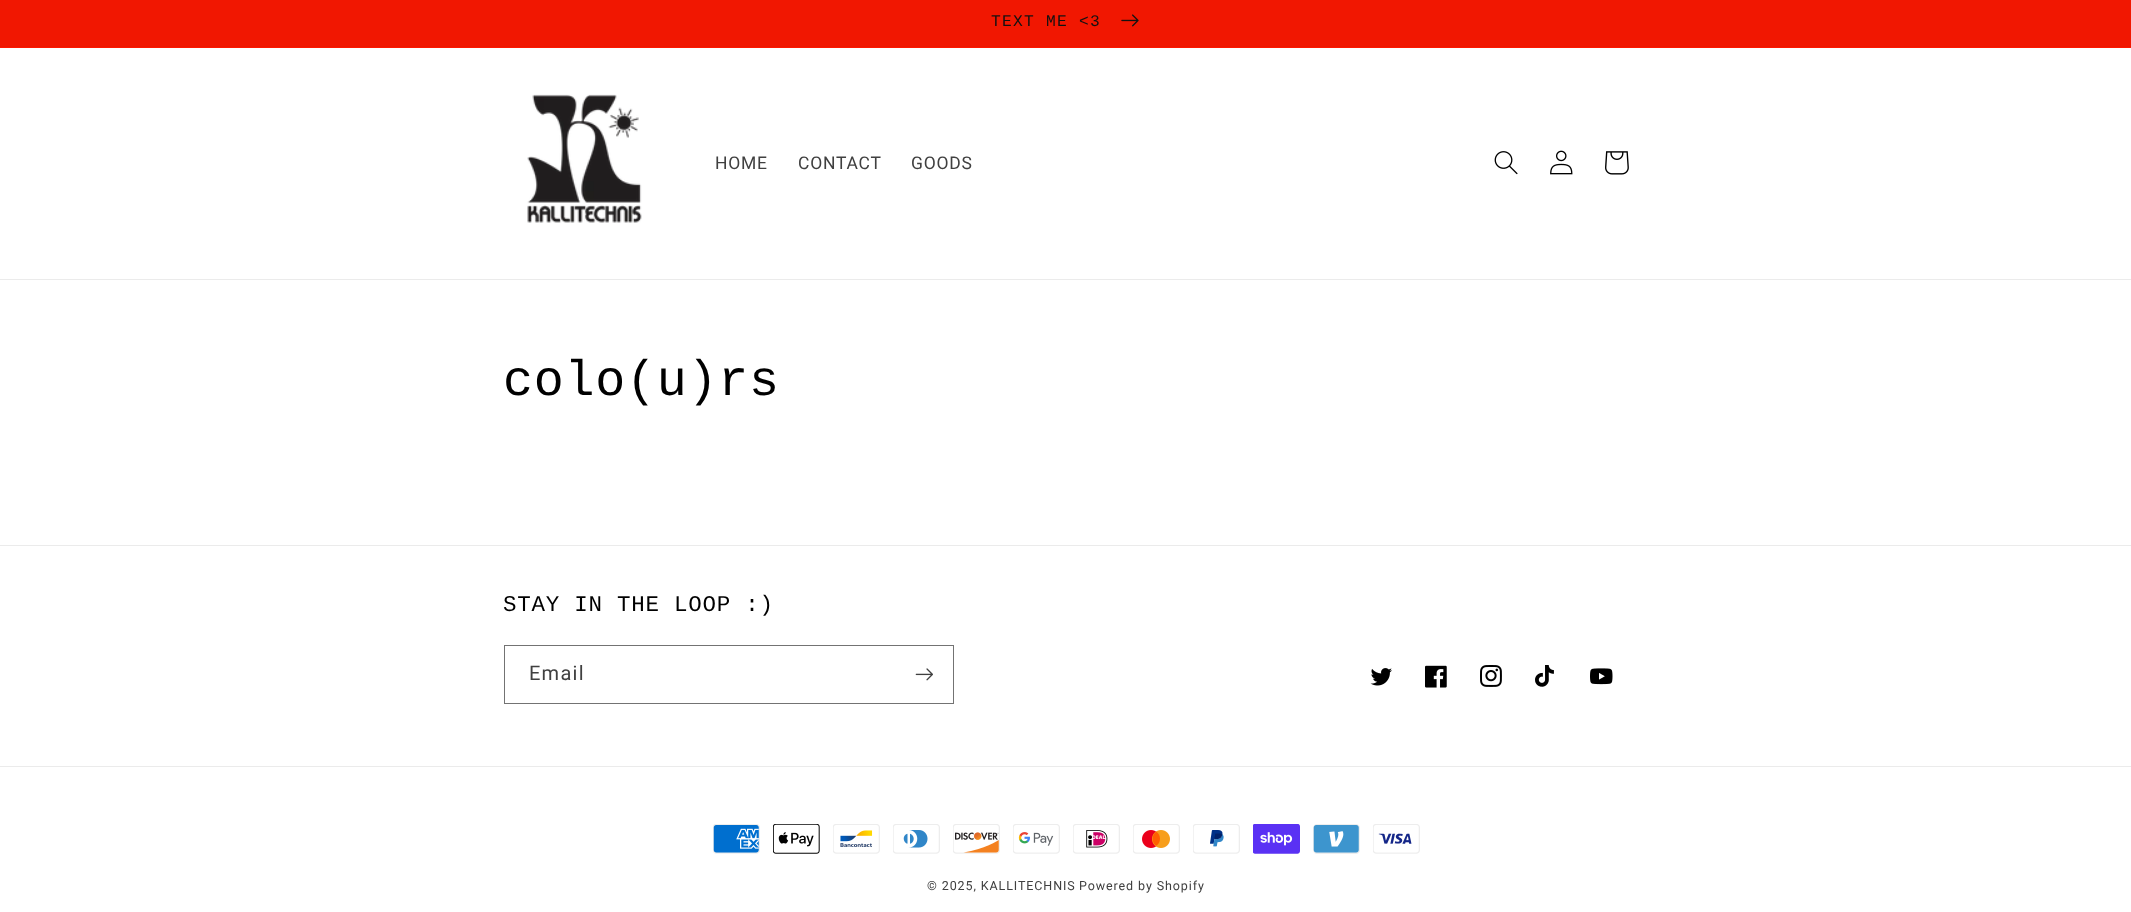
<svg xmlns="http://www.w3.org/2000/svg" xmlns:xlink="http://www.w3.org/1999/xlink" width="2131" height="912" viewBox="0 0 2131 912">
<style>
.cls-1{font:16.25px Liberation Mono;letter-spacing:1.25px;fill:#121212}
.cls-2{font:17.5px Roboto;letter-spacing:0.75px;fill:#404040}
.cls-3{font:50px Liberation Mono;letter-spacing:0.75px;fill:#000000}
.cls-4{font:22.5px Liberation Mono;letter-spacing:0.75px;fill:#000000}
.cls-5{font:20px Roboto;letter-spacing:1.25px;fill:#404040}
.cls-6{font:12.5px Roboto;letter-spacing:0.9px;fill:#404040}
</style>
<rect width="100%" height="100%" fill="#ffffff"/>
<rect fill="#ff1700" x="0" y="47" width="2131" height="1"/>
<rect fill="#ec1701" x="0" y="46" width="2131" height="1"/>
<rect fill="#f11701" x="0" y="0" width="2131" height="46"/>
<image xlink:href="image0.png" x="1121" y="14" width="18" height="13"/>
<rect fill="#ebebeb" x="0" y="279" width="2131" height="1"/>
<image xlink:href="image1.png" x="527" y="94" width="115" height="129"/>
<image xlink:href="image2.png" x="1494" y="151" width="24" height="24"/>
<image xlink:href="image3.png" x="1550" y="150" width="23" height="25"/>
<image xlink:href="image4.png" x="1605" y="151" width="24" height="24"/>
<rect fill="#ebebeb" x="0" y="545" width="2131" height="1"/>
<rect fill="none" stroke="#737373" x="504.5" y="645.5" width="449" height="58"/>
<image xlink:href="image5.png" x="915" y="668" width="18" height="13"/>
<image xlink:href="image6.png" x="1370" y="668" width="22" height="18"/>
<image xlink:href="image7.png" x="1425" y="665" width="22" height="23"/>
<image xlink:href="image8.png" x="1480" y="665" width="22" height="22"/>
<image xlink:href="image9.png" x="1535" y="665" width="19" height="22"/>
<image xlink:href="image10.png" x="1590" y="668" width="23" height="17"/>
<rect fill="#ebebeb" x="0" y="766" width="2131" height="1"/>
<image xlink:href="image11.png" x="713" y="824" width="47" height="30"/>
<image xlink:href="image12.png" x="773" y="824" width="47" height="30"/>
<image xlink:href="image13.png" x="833" y="824" width="47" height="30"/>
<image xlink:href="image14.png" x="893" y="824" width="47" height="30"/>
<image xlink:href="image15.png" x="953" y="824" width="47" height="30"/>
<image xlink:href="image16.png" x="1013" y="824" width="47" height="30"/>
<image xlink:href="image17.png" x="1073" y="824" width="47" height="30"/>
<image xlink:href="image18.png" x="1133" y="824" width="47" height="30"/>
<image xlink:href="image19.png" x="1193" y="824" width="47" height="30"/>
<image xlink:href="image20.png" x="1253" y="824" width="47" height="30"/>
<image xlink:href="image21.png" x="1313" y="824" width="47" height="30"/>
<image xlink:href="image22.png" x="1373" y="824" width="47" height="30"/>
<text class="cls-1" x="991" y="26">TEXT ME &lt;3</text>
<text class="cls-2" x="715" y="169">HOME</text>
<text class="cls-2" x="798" y="169">CONTACT</text>
<text class="cls-2" x="911" y="169">GOODS</text>
<text class="cls-3" x="503" y="395">colo(u)rs</text>
<text class="cls-4" x="503" y="611">STAY IN THE LOOP :)</text>
<text class="cls-5" x="529" y="680">Email</text>
<text class="cls-6" x="927" y="890">© 2025, KALLITECHNIS</text>
<text class="cls-6" x="1079" y="890">Powered by Shopify</text>
</svg>
